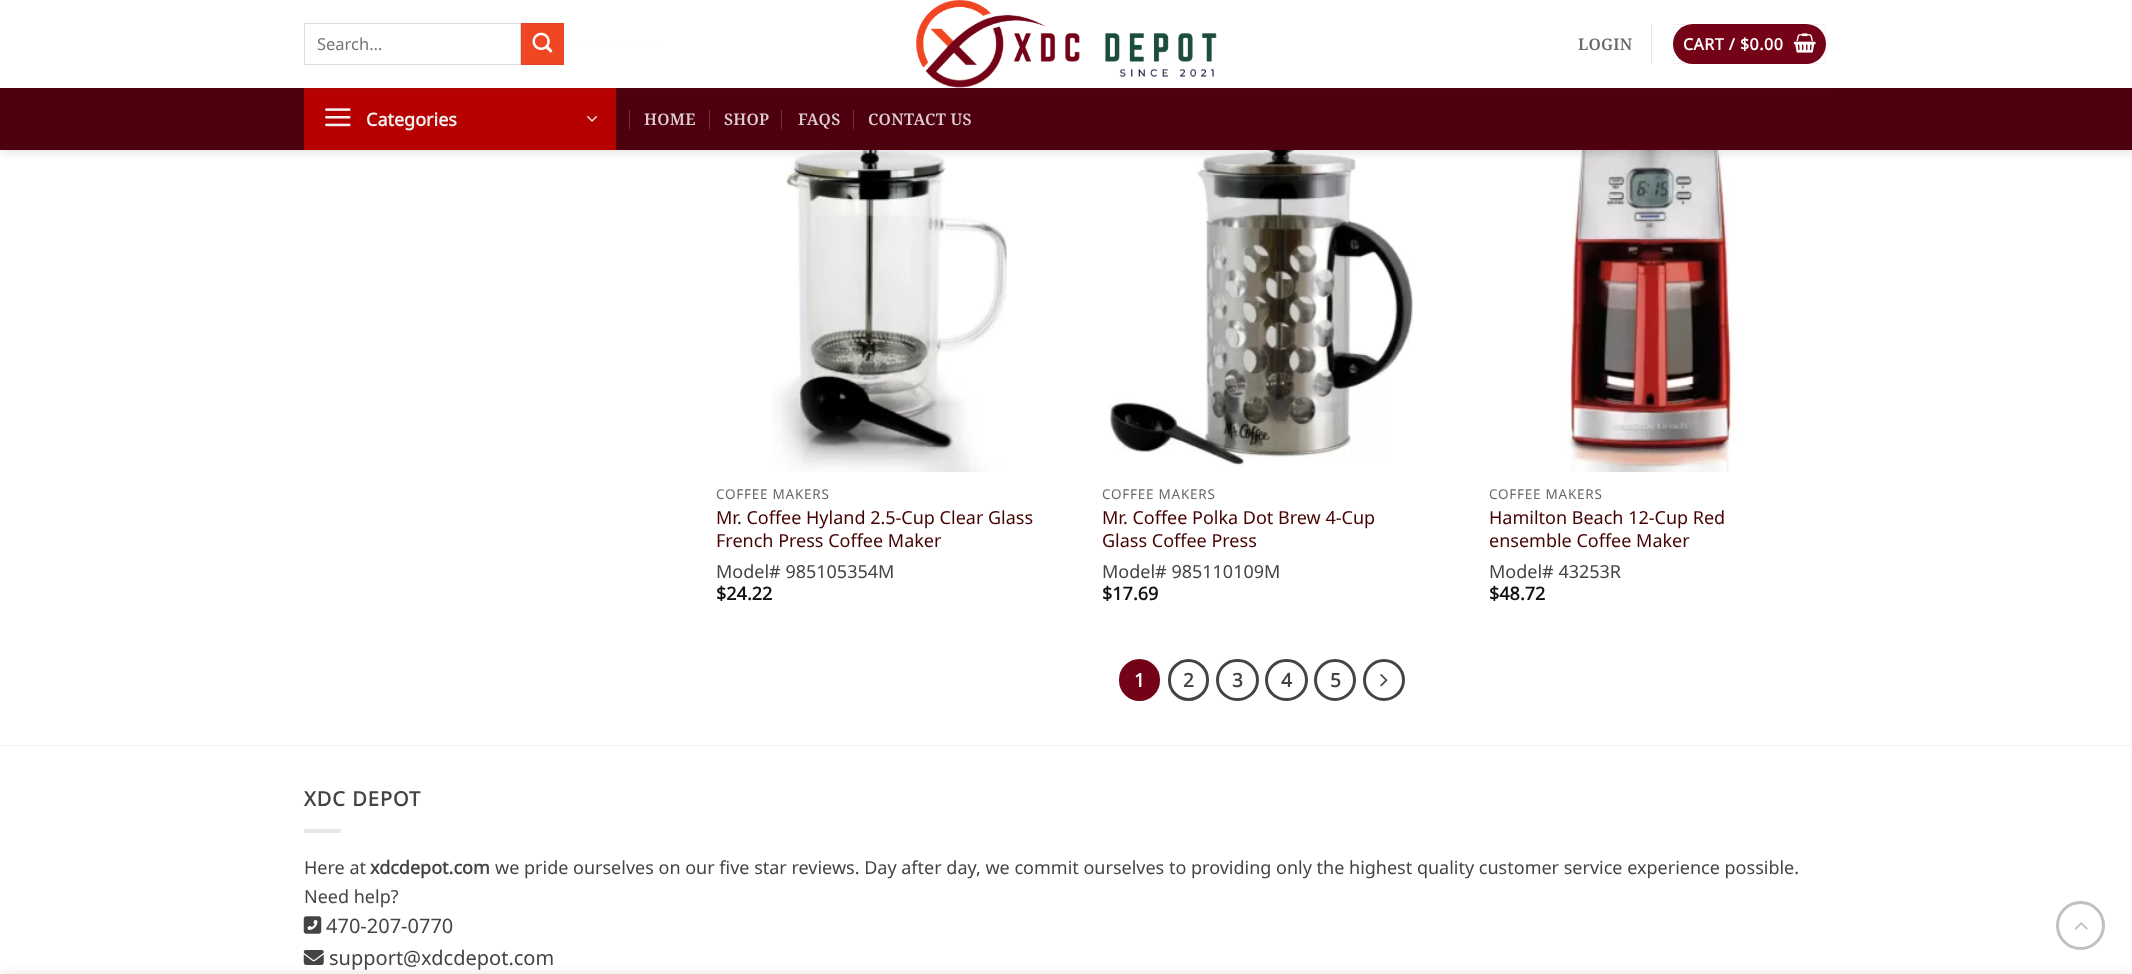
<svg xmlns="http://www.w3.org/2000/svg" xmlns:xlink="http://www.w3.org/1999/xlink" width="2132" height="974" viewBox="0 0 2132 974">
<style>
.cls-1{font:16.5px Noto Sans;fill:#757575}
.cls-2{font:600 16px Noto Serif;letter-spacing:0.25px;fill:#696969}
.cls-3{font:bold 16px Noto Sans;letter-spacing:0.5px;fill:#ffffff}
.cls-4{font:bold 18px Noto Sans;fill:#f1f1f1}
.cls-5{font:600 16px Noto Serif;letter-spacing:0.25px;fill:#dccccf}
.cls-6{font:13.5px Noto Sans;letter-spacing:0.75px;fill:#696969}
.cls-7{font:18px Noto Sans;fill:#440202}
.cls-8{font:18px Noto Sans;fill:#444444}
.cls-9{font:bold 18px Noto Sans;fill:#111111}
.cls-10{font:bold 19px Noto Sans;fill:#ffffff}
.cls-11{font:bold 19px Noto Sans;fill:#444444}
.cls-12{font:bold 20px Noto Sans;letter-spacing:1px;fill:#444444}
.cls-13{font:bold 18px Noto Sans;fill:#444444}
.cls-14{font:20px Noto Sans;fill:#444444}
</style>
<defs>
<clipPath id="clip1"><rect x="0" y="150" width="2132" height="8"/></clipPath>
</defs>
<rect width="100%" height="100%" fill="#ffffff"/>
<rect fill="#ececec" x="564" y="41" width="94" height="1"/>
<image xlink:href="image5.png" x="771" y="150" width="237" height="322"/>
<image xlink:href="image6.png" x="1109" y="150" width="304" height="317"/>
<image xlink:href="image7.png" x="1567" y="150" width="170" height="322"/>
<g clip-path="url(#clip1)">
<rect fill="#000000" fill-opacity="0.15" filter="blur(6px)" x="1" y="1" width="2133" height="150"/>
</g>
<rect fill="none" stroke="#dddddd" x="304.5" y="23.5" width="216" height="41"/>
<rect fill="#f14624" stroke="#e54322" x="521.5" y="23.5" width="42" height="41"/>
<image xlink:href="image0.png" x="532" y="32" width="21" height="21"/>
<image xlink:href="image1.png" x="916" y="0" width="301" height="88"/>
<rect fill="#e6e6e6" x="1651" y="25" width="1" height="38"/>
<rect fill="#740318" x="1673" y="24" width="153" height="40" rx="20"/>
<rect fill="none" stroke="#000000" stroke-opacity="0.05" x="1673.5" y="24.5" width="152" height="39"/>
<image xlink:href="image2.png" x="1793" y="33" width="23" height="20"/>
<rect fill="#4f000f" x="0" y="88" width="2132" height="62"/>
<rect fill="#b70000" x="304" y="88" width="312" height="62"/>
<rect fill="#444444" fill-opacity="0.1" x="304" y="88" width="1525" height="1"/>
<rect fill="#ffffff" fill-opacity="0.9" x="564" y="41" width="94" height="1"/>
<image xlink:href="image3.png" x="325" y="108" width="26" height="19"/>
<image xlink:href="image4.png" x="587" y="116" width="10" height="6"/>
<rect fill="#72333f" x="629" y="110" width="1" height="19"/>
<rect fill="#72333f" x="709" y="110" width="1" height="19"/>
<rect fill="#72333f" x="781" y="110" width="1" height="19"/>
<rect fill="#72333f" x="853" y="110" width="1" height="19"/>
<rect fill="#740318" stroke="#740318" stroke-width="3" x="1120.5" y="660.5" width="38" height="39" rx="19"/>
<rect fill="none" stroke="#444444" stroke-width="3" x="1169.5" y="660.5" width="38" height="39" rx="19"/>
<rect fill="none" stroke="#444444" stroke-width="3" x="1217.5" y="660.5" width="40" height="39" rx="19.5"/>
<rect fill="none" stroke="#444444" stroke-width="3" x="1266.5" y="660.5" width="40" height="39" rx="19.5"/>
<circle fill="none" stroke="#444444" stroke-width="3" cx="1335" cy="680" r="19.5"/>
<circle fill="none" stroke="#444444" stroke-width="3" cx="1384" cy="680" r="19.5"/>
<image xlink:href="image8.png" x="1380" y="674" width="8" height="13"/>
<rect fill="#f2f2f2" x="0" y="745" width="2132" height="1"/>
<rect fill="#e6e6e6" x="304" y="829" width="37" height="4"/>
<image xlink:href="image9.png" x="303" y="916" width="19" height="18"/>
<image xlink:href="image10.png" x="303" y="950" width="21" height="15"/>
<circle fill="none" stroke="#c0c0c0" stroke-width="3" cx="2080.5" cy="925.5" r="23"/>
<image xlink:href="image11.png" x="2074" y="922" width="14" height="8"/>
<rect fill="#000000" fill-opacity="0.14" filter="blur(5.5px)" x="0" y="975" width="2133" height="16"/>
<text class="cls-1" x="317" y="50">Search…</text>
<text class="cls-2" x="1578" y="50">LOGIN</text>
<text class="cls-3" x="1683" y="50">CART / $0.00</text>
<text class="cls-4" x="366" y="126">Categories</text>
<text class="cls-5" x="644" y="125">HOME</text>
<text class="cls-5" x="724" y="125">SHOP</text>
<text class="cls-5" x="798" y="125">FAQS</text>
<text class="cls-5" x="868" y="125">CONTACT US</text>
<text class="cls-6" x="716" y="499">COFFEE MAKERS</text>
<text class="cls-7"><tspan x="716" y="524">Mr. Coffee Hyland 2.5-Cup Clear Glass</tspan><tspan x="716" y="547">French Press Coffee Maker</tspan></text>
<text class="cls-8" x="716" y="578">Model# 985105354M</text>
<text class="cls-9" x="716" y="600">$24.22</text>
<text class="cls-6" x="1102" y="499">COFFEE MAKERS</text>
<text class="cls-7"><tspan x="1102" y="524">Mr. Coffee Polka Dot Brew 4-Cup</tspan><tspan x="1102" y="547">Glass Coffee Press</tspan></text>
<text class="cls-8" x="1102" y="578">Model# 985110109M</text>
<text class="cls-9" x="1102" y="600">$17.69</text>
<text class="cls-6" x="1489" y="499">COFFEE MAKERS</text>
<text class="cls-7"><tspan x="1489" y="524">Hamilton Beach 12-Cup Red</tspan><tspan x="1489" y="547">ensemble Coffee Maker</tspan></text>
<text class="cls-8" x="1489" y="578">Model# 43253R</text>
<text class="cls-9" x="1489" y="600">$48.72</text>
<text class="cls-10" x="1134" y="687">1</text>
<text class="cls-11" x="1183" y="687">2</text>
<text class="cls-11" x="1232" y="687">3</text>
<text class="cls-11" x="1281" y="687">4</text>
<text class="cls-11" x="1330" y="687">5</text>
<text class="cls-12" x="304" y="806">XDC DEPOT</text>
<text class="cls-8" x="304" y="874">Here at</text>
<text class="cls-13" x="370" y="874">xdcdepot.com</text>
<text class="cls-8" x="495" y="874">we pride ourselves on our five star reviews. Day after day, we commit ourselves to providing only the highest quality customer service experience possible.</text>
<text class="cls-8" x="304" y="903">Need help?</text>
<text class="cls-14" x="326" y="933">470-207-0770</text>
<text class="cls-14" x="329" y="965">support@xdcdepot.com</text>
</svg>
